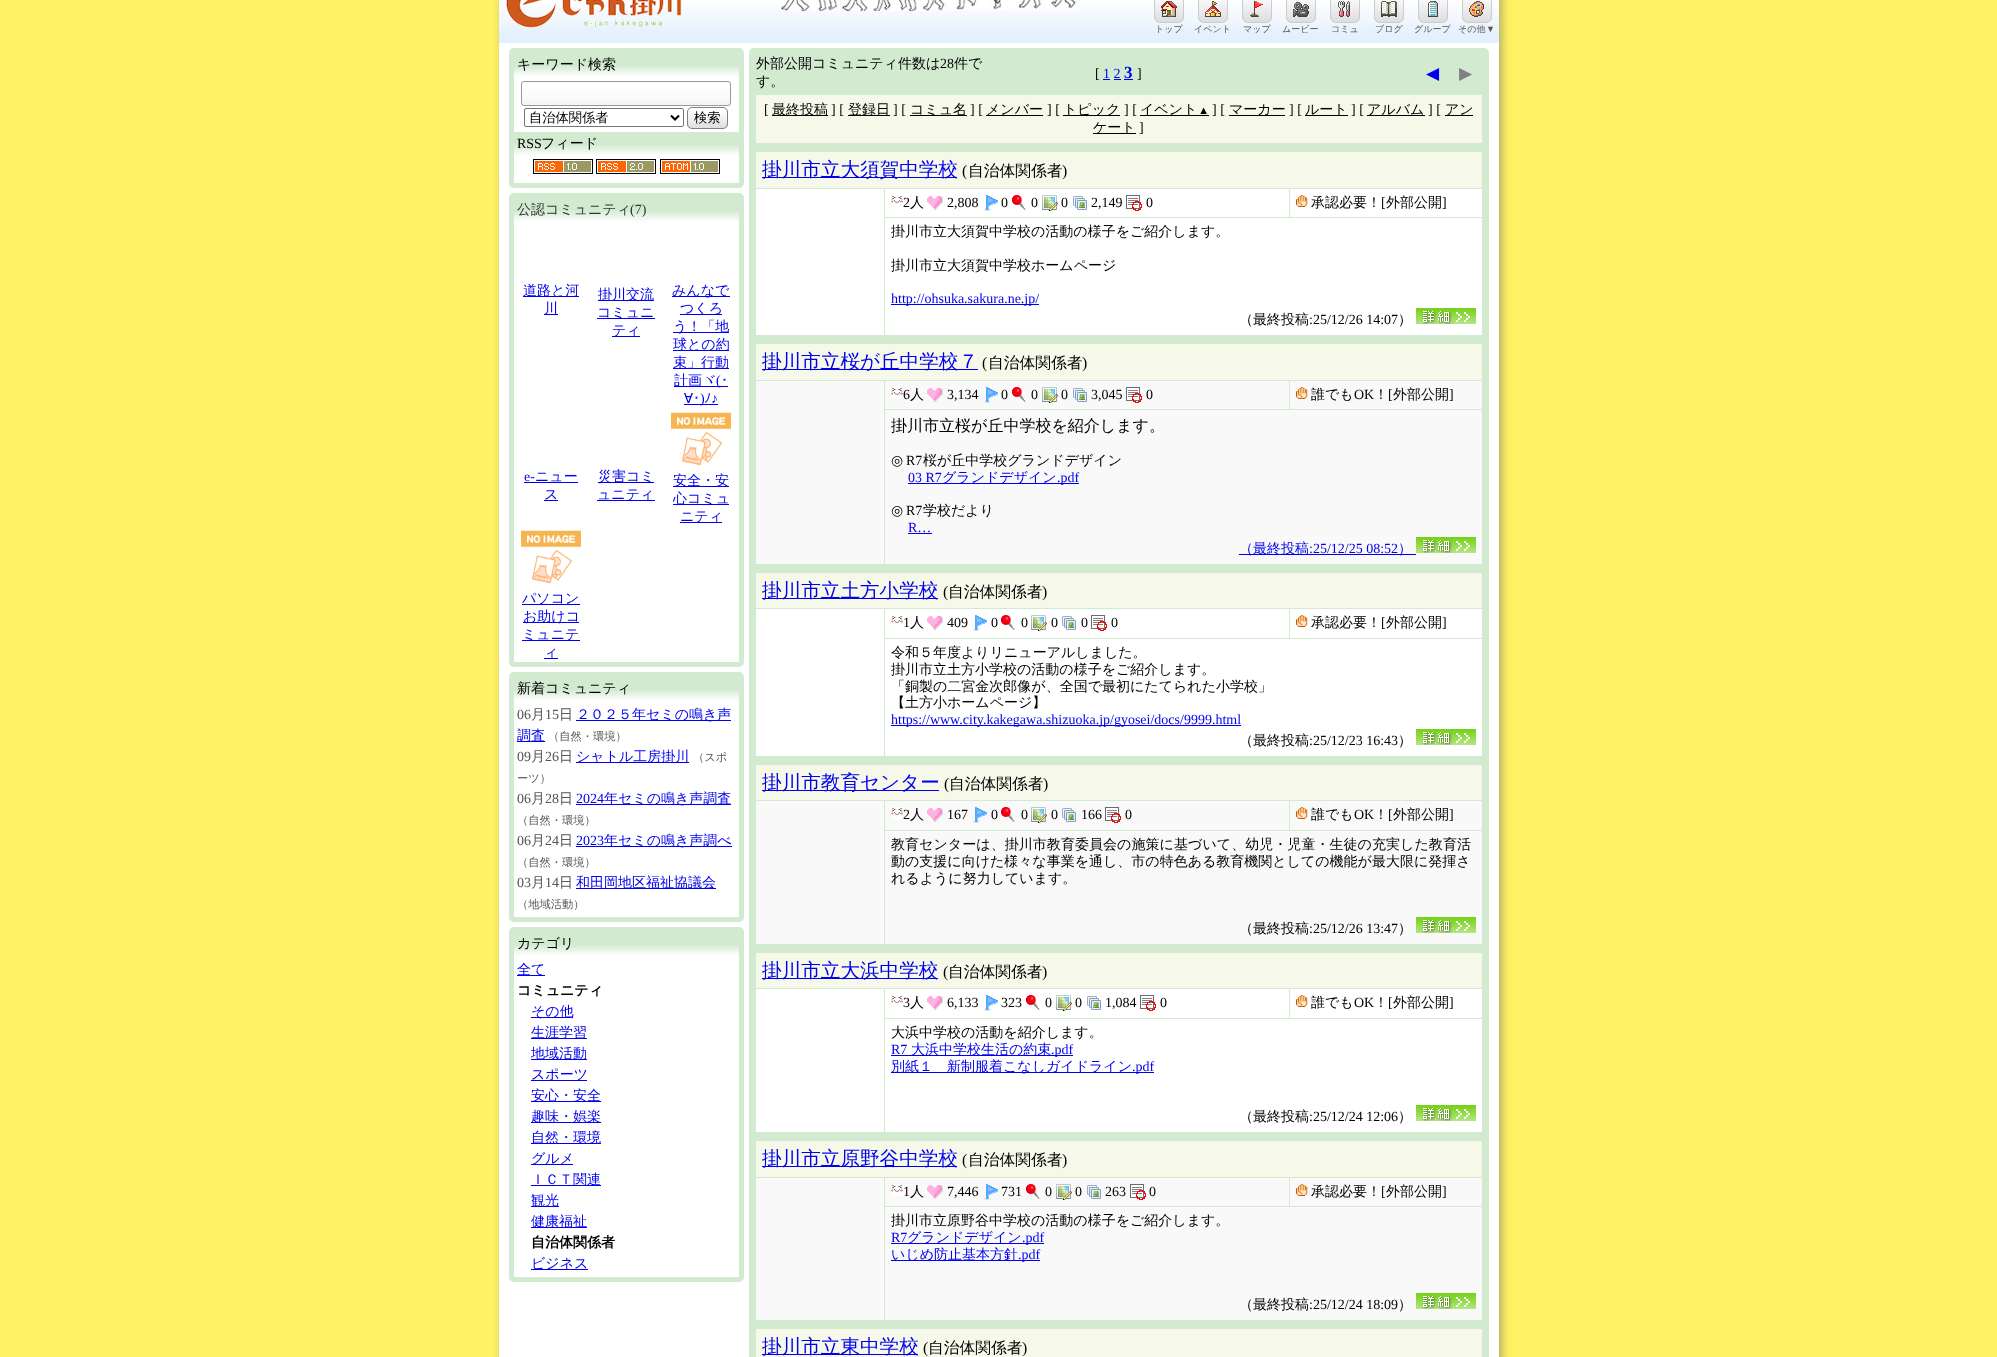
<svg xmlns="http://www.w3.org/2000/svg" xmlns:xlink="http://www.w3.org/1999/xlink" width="1997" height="1357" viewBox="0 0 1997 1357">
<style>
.cls-1{font:500 9px WenQuanYi Zen Hei;fill:#555555}
.cls-2{font:9px Liberation Serif;fill:#555555}
.cls-3{font:500 14px WenQuanYi Zen Hei;fill:#000000}
.cls-4{font:500 13.25px WenQuanYi Zen Hei;fill:#000000}
.cls-5{font:14px Liberation Serif;fill:#000000}
.cls-6{font:500 14px WenQuanYi Zen Hei;fill:#333333}
.cls-7{font:14px Liberation Serif;fill:#333333}
.cls-8{font:500 14px WenQuanYi Zen Hei;fill:#0000ee}
.cls-9{font:14px Liberation Serif;fill:#0000ee}
.cls-10{font:14px IPAGothic;fill:#0000ee}
.cls-11{font:14px Liberation Serif;fill:#555555}
.cls-12{font:500 14px WenQuanYi Zen Hei;fill:#555555}
.cls-13{font:500 11.25px WenQuanYi Zen Hei;fill:#555555}
.cls-14{font:bold 14px WenQuanYi Zen Hei;fill:#000000}
.cls-15{font:bold 17px Liberation Serif;fill:#0000ee}
.cls-16{font:17px DejaVu Sans;fill:#0000ee}
.cls-17{font:17px DejaVu Sans;fill:#808080}
.cls-18{font:11.25px Liberation Serif;fill:#000000}
.cls-19{font:500 19.6px WenQuanYi Zen Hei;fill:#0000ee}
.cls-20{font:15.75px Liberation Serif;fill:#000000}
.cls-21{font:500 15.75px WenQuanYi Zen Hei;fill:#000000}
.cls-22{font:500 16px WenQuanYi Zen Hei;fill:#000000}
.cls-23{font:14px DejaVu Sans;fill:#000000}
.cls-24{font:500 14px WenQuanYi Zen Hei;letter-spacing:0.05px;fill:#000000}
</style>
<defs>
<linearGradient id="g1" gradientUnits="userSpaceOnUse" x1="999" y1="-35" x2="999" y2="35"><stop offset="0.5" stop-color="#ffffff"/><stop offset="1" stop-color="#e4f0fd"/></linearGradient>
<clipPath id="clip1"><rect x="1154" y="-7" width="30" height="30" rx="6"/></clipPath>
<linearGradient id="g2" gradientUnits="userSpaceOnUse" x1="1169" y1="-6" x2="1169" y2="22"><stop offset="0" stop-color="#ffffff"/><stop offset="1" stop-color="#dddddd"/></linearGradient>
<clipPath id="clip2"><rect x="1198" y="-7" width="30" height="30" rx="6"/></clipPath>
<linearGradient id="g3" gradientUnits="userSpaceOnUse" x1="1213" y1="-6" x2="1213" y2="22"><stop offset="0" stop-color="#ffffff"/><stop offset="1" stop-color="#dddddd"/></linearGradient>
<clipPath id="clip3"><rect x="1242" y="-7" width="30" height="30" rx="6"/></clipPath>
<linearGradient id="g4" gradientUnits="userSpaceOnUse" x1="1257" y1="-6" x2="1257" y2="22"><stop offset="0" stop-color="#ffffff"/><stop offset="1" stop-color="#dddddd"/></linearGradient>
<clipPath id="clip4"><rect x="1286" y="-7" width="30" height="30" rx="6"/></clipPath>
<linearGradient id="g5" gradientUnits="userSpaceOnUse" x1="1301" y1="-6" x2="1301" y2="22"><stop offset="0" stop-color="#ffffff"/><stop offset="1" stop-color="#dddddd"/></linearGradient>
<clipPath id="clip5"><rect x="1330" y="-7" width="30" height="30" rx="6"/></clipPath>
<linearGradient id="g6" gradientUnits="userSpaceOnUse" x1="1345" y1="-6" x2="1345" y2="22"><stop offset="0" stop-color="#ffffff"/><stop offset="1" stop-color="#dddddd"/></linearGradient>
<clipPath id="clip6"><rect x="1374" y="-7" width="30" height="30" rx="6"/></clipPath>
<linearGradient id="g7" gradientUnits="userSpaceOnUse" x1="1389" y1="-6" x2="1389" y2="22"><stop offset="0" stop-color="#ffffff"/><stop offset="1" stop-color="#dddddd"/></linearGradient>
<clipPath id="clip7"><rect x="1418" y="-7" width="30" height="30" rx="6"/></clipPath>
<linearGradient id="g8" gradientUnits="userSpaceOnUse" x1="1433" y1="-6" x2="1433" y2="22"><stop offset="0" stop-color="#ffffff"/><stop offset="1" stop-color="#dddddd"/></linearGradient>
<clipPath id="clip8"><rect x="1462" y="-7" width="30" height="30" rx="6"/></clipPath>
<linearGradient id="g9" gradientUnits="userSpaceOnUse" x1="1477" y1="-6" x2="1477" y2="22"><stop offset="0" stop-color="#ffffff"/><stop offset="1" stop-color="#dddddd"/></linearGradient>
<linearGradient id="g10" gradientUnits="userSpaceOnUse" x1="627" y1="53" x2="627" y2="77"><stop offset="0" stop-color="#d1ead0"/><stop offset="0.5" stop-color="#d1ead0"/><stop offset="1" stop-color="#ffffff"/></linearGradient>
<clipPath id="clip9"><rect x="521" y="81" width="210" height="25" rx="3"/></clipPath>
<linearGradient id="g11" gradientUnits="userSpaceOnUse" x1="626" y1="82" x2="626" y2="105"><stop offset="0.1" stop-color="#ffffff"/><stop offset="0.7" stop-color="#fafafa"/><stop offset="0.9" stop-color="#f5f5f5"/></linearGradient>
<linearGradient id="g12" gradientUnits="userSpaceOnUse" x1="627" y1="132" x2="627" y2="156"><stop offset="0" stop-color="#d1ead0"/><stop offset="0.5" stop-color="#d1ead0"/><stop offset="1" stop-color="#ffffff"/></linearGradient>
<linearGradient id="g13" gradientUnits="userSpaceOnUse" x1="627" y1="198" x2="627" y2="222"><stop offset="0" stop-color="#d1ead0"/><stop offset="0.5" stop-color="#d1ead0"/><stop offset="1" stop-color="#ffffff"/></linearGradient>
<linearGradient id="g14" gradientUnits="userSpaceOnUse" x1="627" y1="677" x2="627" y2="701"><stop offset="0" stop-color="#d1ead0"/><stop offset="0.5" stop-color="#d1ead0"/><stop offset="1" stop-color="#ffffff"/></linearGradient>
<linearGradient id="g15" gradientUnits="userSpaceOnUse" x1="627" y1="932" x2="627" y2="956"><stop offset="0" stop-color="#d1ead0"/><stop offset="0.5" stop-color="#d1ead0"/><stop offset="1" stop-color="#ffffff"/></linearGradient>
</defs>
<rect width="100%" height="100%" fill="#fff464"/>
<rect fill="#646464" fill-opacity="0.5" filter="blur(5px)" x="502" y="-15" width="1000" height="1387"/>
<rect fill="#ffffff" x="499" y="43" width="1000" height="1314"/>
<rect fill="url(#g1)" x="499" y="0" width="1000" height="35"/>
<image xlink:href="image0.png" x="506" y="0" width="176" height="28"/>
<image xlink:href="image1.png" x="779" y="0" width="300" height="11"/>
<g clip-path="url(#clip1)">
<rect fill="url(#g2)" x="1154" y="0" width="30" height="22"/>
</g>
<rect fill="none" stroke="#cccccc" x="1154.5" y="-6.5" width="29" height="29" rx="5.5"/>
<image xlink:href="image2.png" x="1161" y="1" width="16" height="16"/>
<g clip-path="url(#clip2)">
<rect fill="url(#g3)" x="1198" y="0" width="30" height="22"/>
</g>
<rect fill="none" stroke="#cccccc" x="1198.5" y="-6.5" width="29" height="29" rx="5.5"/>
<image xlink:href="image3.png" x="1205" y="1" width="16" height="16"/>
<g clip-path="url(#clip3)">
<rect fill="url(#g4)" x="1242" y="0" width="30" height="22"/>
</g>
<rect fill="none" stroke="#cccccc" x="1242.5" y="-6.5" width="29" height="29" rx="5.5"/>
<image xlink:href="image4.png" x="1250" y="1" width="13" height="16"/>
<g clip-path="url(#clip4)">
<rect fill="url(#g5)" x="1286" y="0" width="30" height="22"/>
</g>
<rect fill="none" stroke="#cccccc" x="1286.5" y="-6.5" width="29" height="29" rx="5.5"/>
<image xlink:href="image5.png" x="1293" y="2" width="16" height="15"/>
<g clip-path="url(#clip5)">
<rect fill="url(#g6)" x="1330" y="0" width="30" height="22"/>
</g>
<rect fill="none" stroke="#cccccc" x="1330.5" y="-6.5" width="29" height="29" rx="5.5"/>
<image xlink:href="image6.png" x="1338" y="1" width="12" height="16"/>
<g clip-path="url(#clip6)">
<rect fill="url(#g7)" x="1374" y="0" width="30" height="22"/>
</g>
<rect fill="none" stroke="#cccccc" x="1374.5" y="-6.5" width="29" height="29" rx="5.5"/>
<image xlink:href="image7.png" x="1381" y="1" width="16" height="16"/>
<g clip-path="url(#clip7)">
<rect fill="url(#g8)" x="1418" y="0" width="30" height="22"/>
</g>
<rect fill="none" stroke="#cccccc" x="1418.5" y="-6.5" width="29" height="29" rx="5.5"/>
<image xlink:href="image8.png" x="1428" y="1" width="10" height="16"/>
<g clip-path="url(#clip8)">
<rect fill="url(#g9)" x="1462" y="0" width="30" height="22"/>
</g>
<rect fill="none" stroke="#cccccc" x="1462.5" y="-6.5" width="29" height="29" rx="5.5"/>
<image xlink:href="image9.png" x="1469" y="1" width="15" height="16"/>
<rect fill="#e4f0fd" x="499" y="35" width="1000" height="8"/>
<rect fill="#d1ead0" x="509" y="48" width="235" height="140" rx="5"/>
<rect fill="url(#g10)" x="514" y="66" width="225" height="11"/>
<rect fill="#ffffff" x="514" y="77" width="225" height="55"/>
<g clip-path="url(#clip9)">
<rect fill="url(#g11)" x="521" y="82" width="210" height="23"/>
</g>
<rect fill="none" stroke="#999999" x="521.5" y="81.5" width="209" height="24" rx="2.5"/>
<rect fill="none" stroke="#767676" x="524.5" y="108.5" width="159" height="18" rx="1.5"/>
<path fill="none" stroke="#000000" stroke-width="2" d="M671 115.5L675 119.5L679 115.5"/>
<image xlink:href="image10.png" x="687" y="107" width="41" height="21"/>
<rect fill="none" stroke="#808080" x="687.5" y="107.5" width="40" height="21" rx="4.5"/>
<rect fill="url(#g12)" x="514" y="145" width="225" height="11"/>
<rect fill="#ffffff" x="514" y="156" width="225" height="27"/>
<image xlink:href="image11.png" x="533" y="159" width="60" height="15"/>
<image xlink:href="image12.png" x="596" y="159" width="60" height="15"/>
<image xlink:href="image13.png" x="660" y="159" width="60" height="15"/>
<rect fill="#d1ead0" x="509" y="193" width="235" height="474" rx="5"/>
<rect fill="url(#g13)" x="514" y="211" width="225" height="11"/>
<rect fill="#ffffff" x="514" y="222" width="225" height="440"/>
<rect fill="#0000ee" x="523" y="296" width="56" height="1"/>
<rect fill="#0000ee" x="544" y="314" width="14" height="1"/>
<rect fill="#0000ee" x="598" y="300" width="56" height="1"/>
<rect fill="#0000ee" x="597" y="318" width="58" height="1"/>
<rect fill="#0000ee" x="612" y="336" width="28" height="1"/>
<rect fill="#0000ee" x="672" y="296" width="58" height="1"/>
<rect fill="#0000ee" x="680" y="314" width="42" height="1"/>
<rect fill="#0000ee" x="673" y="332" width="56" height="1"/>
<rect fill="#0000ee" x="673" y="350" width="56" height="1"/>
<rect fill="#0000ee" x="673" y="368" width="56" height="1"/>
<rect fill="#0000ee" x="674" y="386" width="54" height="1"/>
<rect fill="#0000ee" x="684" y="404" width="34" height="1"/>
<rect fill="#0000ee" x="524" y="482" width="54" height="1"/>
<rect fill="#0000ee" x="544" y="500" width="14" height="1"/>
<rect fill="#0000ee" x="598" y="482" width="56" height="1"/>
<rect fill="#0000ee" x="597" y="500" width="58" height="1"/>
<image xlink:href="image14.png" x="671" y="412" width="60" height="54"/>
<rect fill="#0000ee" x="673" y="486" width="56" height="1"/>
<rect fill="#0000ee" x="673" y="504" width="56" height="1"/>
<rect fill="#0000ee" x="680" y="522" width="42" height="1"/>
<image xlink:href="image14.png" x="521" y="530" width="60" height="54"/>
<rect fill="#0000ee" x="522" y="604" width="58" height="1"/>
<rect fill="#0000ee" x="523" y="622" width="56" height="1"/>
<rect fill="#0000ee" x="522" y="640" width="58" height="1"/>
<rect fill="#0000ee" x="544" y="658" width="14" height="1"/>
<rect fill="#d1ead0" x="509" y="672" width="235" height="250" rx="5"/>
<rect fill="url(#g14)" x="514" y="690" width="225" height="11"/>
<rect fill="#ffffff" x="514" y="701" width="225" height="216"/>
<rect fill="#0000ee" x="576" y="720" width="155" height="1"/>
<rect fill="#0000ee" x="517" y="741" width="28" height="1"/>
<rect fill="#0000ee" x="576" y="762" width="113" height="1"/>
<rect fill="#0000ee" x="576" y="804" width="155" height="1"/>
<rect fill="#0000ee" x="576" y="846" width="156" height="1"/>
<rect fill="#0000ee" x="576" y="888" width="140" height="1"/>
<rect fill="#d1ead0" x="509" y="927" width="235" height="355" rx="5"/>
<rect fill="url(#g15)" x="514" y="945" width="225" height="11"/>
<rect fill="#ffffff" x="514" y="956" width="225" height="321"/>
<rect fill="#0000ee" x="517" y="975" width="28" height="1"/>
<rect fill="#0000ee" x="531" y="1017" width="42" height="1"/>
<rect fill="#0000ee" x="531" y="1038" width="56" height="1"/>
<rect fill="#0000ee" x="531" y="1059" width="56" height="1"/>
<rect fill="#0000ee" x="531" y="1080" width="56" height="1"/>
<rect fill="#0000ee" x="531" y="1101" width="70" height="1"/>
<rect fill="#0000ee" x="531" y="1122" width="70" height="1"/>
<rect fill="#0000ee" x="531" y="1143" width="70" height="1"/>
<rect fill="#0000ee" x="531" y="1164" width="42" height="1"/>
<rect fill="#0000ee" x="531" y="1185" width="70" height="1"/>
<rect fill="#0000ee" x="531" y="1206" width="28" height="1"/>
<rect fill="#0000ee" x="531" y="1227" width="56" height="1"/>
<rect fill="#0000ee" x="531" y="1269" width="57" height="1"/>
<rect fill="#d1ead0" x="749" y="48" width="740" height="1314" rx="5"/>
<rect fill="#0000ee" x="1103" y="79" width="7" height="1"/>
<rect fill="#0000ee" x="1124" y="79" width="9" height="1"/>
<rect fill="#0000ee" x="1114" y="79" width="7" height="1"/>
<rect fill="#f6f9e9" x="756" y="95" width="726" height="48"/>
<rect fill="#000000" x="772" y="115" width="56" height="1"/>
<rect fill="#000000" x="848" y="115" width="42" height="1"/>
<rect fill="#000000" x="910" y="115" width="57" height="1"/>
<rect fill="#000000" x="986" y="115" width="57" height="1"/>
<rect fill="#000000" x="1063" y="115" width="57" height="1"/>
<rect fill="#000000" x="1140" y="115" width="69" height="1"/>
<rect fill="#000000" x="1229" y="115" width="56" height="1"/>
<rect fill="#000000" x="1305" y="115" width="43" height="1"/>
<rect fill="#000000" x="1367" y="115" width="58" height="1"/>
<rect fill="#000000" x="1445" y="115" width="28" height="1"/>
<rect fill="#000000" x="1093" y="133" width="43" height="1"/>
<rect fill="#f6f9e9" x="756" y="152" width="726" height="36"/>
<rect fill="#0000ee" x="762" y="177" width="195" height="1"/>
<rect fill="#ffffff" x="756" y="189" width="128" height="146"/>
<rect fill="#ffffff" x="885" y="189" width="404" height="28"/>
<image xlink:href="image15.png" x="891" y="195" width="12" height="8"/>
<image xlink:href="image16.png" x="927" y="196" width="16" height="14"/>
<image xlink:href="image17.png" x="984" y="195" width="14" height="16"/>
<image xlink:href="image18.png" x="1012" y="195" width="14" height="15"/>
<image xlink:href="image19.png" x="1042" y="195" width="16" height="16"/>
<image xlink:href="image20.png" x="1073" y="196" width="14" height="14"/>
<image xlink:href="image21.png" x="1126" y="195" width="16" height="16"/>
<rect fill="#ffffff" x="1290" y="189" width="192" height="28"/>
<image xlink:href="image22.png" x="1296" y="195" width="12" height="12"/>
<rect fill="#ffffff" x="885" y="218" width="597" height="117"/>
<rect fill="#0000ee" x="891" y="304" width="148" height="1"/>
<image xlink:href="image23.png" x="1416" y="308" width="60" height="16"/>
<rect fill="#f6f9e9" x="756" y="344" width="726" height="36"/>
<rect fill="#0000ee" x="762" y="369" width="216" height="1"/>
<rect fill="#f9f9f9" x="756" y="381" width="128" height="183"/>
<rect fill="#f9f9f9" x="885" y="381" width="404" height="28"/>
<image xlink:href="image24.png" x="891" y="387" width="12" height="12"/>
<image xlink:href="image25.png" x="927" y="388" width="16" height="14"/>
<image xlink:href="image26.png" x="984" y="387" width="14" height="16"/>
<image xlink:href="image27.png" x="1012" y="387" width="14" height="15"/>
<image xlink:href="image28.png" x="1042" y="387" width="16" height="16"/>
<image xlink:href="image29.png" x="1073" y="388" width="14" height="14"/>
<image xlink:href="image30.png" x="1126" y="387" width="16" height="16"/>
<rect fill="#f9f9f9" x="1290" y="381" width="192" height="28"/>
<image xlink:href="image31.png" x="1296" y="387" width="12" height="12"/>
<rect fill="#f9f9f9" x="885" y="410" width="597" height="154"/>
<rect fill="#0000ee" x="908" y="483" width="171" height="1"/>
<rect fill="#0000ee" x="908" y="533" width="24" height="1"/>
<rect fill="#0000ee" x="1239" y="554" width="177" height="1"/>
<image xlink:href="image23.png" x="1416" y="537" width="60" height="16"/>
<rect fill="#f6f9e9" x="756" y="573" width="726" height="35"/>
<rect fill="#0000ee" x="762" y="598" width="176" height="1"/>
<rect fill="#ffffff" x="756" y="609" width="128" height="147"/>
<rect fill="#ffffff" x="885" y="609" width="404" height="29"/>
<image xlink:href="image15.png" x="891" y="615" width="12" height="8"/>
<image xlink:href="image16.png" x="927" y="616" width="16" height="14"/>
<image xlink:href="image17.png" x="973" y="615" width="14" height="16"/>
<image xlink:href="image18.png" x="1001" y="615" width="14" height="15"/>
<image xlink:href="image19.png" x="1031" y="615" width="16" height="16"/>
<image xlink:href="image20.png" x="1062" y="616" width="14" height="14"/>
<image xlink:href="image21.png" x="1091" y="615" width="16" height="16"/>
<rect fill="#ffffff" x="1290" y="609" width="192" height="29"/>
<image xlink:href="image22.png" x="1296" y="615" width="12" height="12"/>
<rect fill="#ffffff" x="885" y="639" width="597" height="117"/>
<rect fill="#0000ee" x="891" y="725" width="350" height="1"/>
<image xlink:href="image23.png" x="1416" y="729" width="60" height="16"/>
<rect fill="#f6f9e9" x="756" y="765" width="726" height="35"/>
<rect fill="#0000ee" x="762" y="790" width="177" height="1"/>
<rect fill="#f9f9f9" x="756" y="801" width="128" height="143"/>
<rect fill="#f9f9f9" x="885" y="801" width="404" height="29"/>
<image xlink:href="image24.png" x="891" y="807" width="12" height="12"/>
<image xlink:href="image25.png" x="927" y="808" width="16" height="14"/>
<image xlink:href="image26.png" x="973" y="807" width="14" height="16"/>
<image xlink:href="image27.png" x="1001" y="807" width="14" height="15"/>
<image xlink:href="image28.png" x="1031" y="807" width="16" height="16"/>
<image xlink:href="image29.png" x="1062" y="808" width="14" height="14"/>
<image xlink:href="image30.png" x="1105" y="807" width="16" height="16"/>
<rect fill="#f9f9f9" x="1290" y="801" width="192" height="29"/>
<image xlink:href="image31.png" x="1296" y="807" width="12" height="12"/>
<rect fill="#f9f9f9" x="885" y="831" width="597" height="113"/>
<image xlink:href="image23.png" x="1416" y="917" width="60" height="16"/>
<rect fill="#f6f9e9" x="756" y="953" width="726" height="35"/>
<rect fill="#0000ee" x="762" y="978" width="176" height="1"/>
<rect fill="#ffffff" x="756" y="989" width="128" height="143"/>
<rect fill="#ffffff" x="885" y="989" width="404" height="29"/>
<image xlink:href="image15.png" x="891" y="995" width="12" height="8"/>
<image xlink:href="image16.png" x="927" y="996" width="16" height="14"/>
<image xlink:href="image17.png" x="984" y="995" width="14" height="16"/>
<image xlink:href="image18.png" x="1026" y="995" width="14" height="15"/>
<image xlink:href="image19.png" x="1056" y="995" width="16" height="16"/>
<image xlink:href="image20.png" x="1087" y="996" width="14" height="14"/>
<image xlink:href="image21.png" x="1140" y="995" width="16" height="16"/>
<rect fill="#ffffff" x="1290" y="989" width="192" height="29"/>
<image xlink:href="image22.png" x="1296" y="995" width="12" height="12"/>
<rect fill="#ffffff" x="885" y="1019" width="597" height="113"/>
<rect fill="#0000ee" x="891" y="1055" width="182" height="1"/>
<rect fill="#0000ee" x="891" y="1072" width="263" height="1"/>
<image xlink:href="image23.png" x="1416" y="1105" width="60" height="16"/>
<rect fill="#f6f9e9" x="756" y="1141" width="726" height="36"/>
<rect fill="#0000ee" x="762" y="1166" width="195" height="1"/>
<rect fill="#f9f9f9" x="756" y="1178" width="128" height="142"/>
<rect fill="#f9f9f9" x="885" y="1178" width="404" height="28"/>
<image xlink:href="image24.png" x="891" y="1184" width="12" height="12"/>
<image xlink:href="image25.png" x="927" y="1185" width="16" height="14"/>
<image xlink:href="image26.png" x="984" y="1184" width="14" height="16"/>
<image xlink:href="image27.png" x="1026" y="1184" width="14" height="15"/>
<image xlink:href="image28.png" x="1056" y="1184" width="16" height="16"/>
<image xlink:href="image29.png" x="1087" y="1185" width="14" height="14"/>
<image xlink:href="image30.png" x="1130" y="1184" width="16" height="16"/>
<rect fill="#f9f9f9" x="1290" y="1178" width="192" height="28"/>
<image xlink:href="image31.png" x="1296" y="1184" width="12" height="12"/>
<rect fill="#f9f9f9" x="885" y="1207" width="597" height="113"/>
<rect fill="#0000ee" x="891" y="1243" width="153" height="1"/>
<rect fill="#0000ee" x="891" y="1260" width="149" height="1"/>
<image xlink:href="image23.png" x="1416" y="1293" width="60" height="16"/>
<rect fill="#f6f9e9" x="756" y="1329" width="726" height="28"/>
<rect fill="#0000ee" x="762" y="1354" width="156" height="1"/>
<text class="cls-1" x="1155" y="32">トップ</text>
<text class="cls-1" x="1194" y="32">イベント</text>
<text class="cls-1" x="1243" y="32">マップ</text>
<text class="cls-1" x="1282" y="32">ムービー</text>
<text class="cls-1" x="1331" y="32">コミュ</text>
<text class="cls-1" x="1375" y="32">ブログ</text>
<text class="cls-1" x="1414" y="32">グループ</text>
<text class="cls-1" x="1458" y="32">その他</text>
<text class="cls-2" x="1486" y="32">▼</text>
<text class="cls-3" x="517" y="69">キーワード検索</text>
<text class="cls-4" x="529" y="122">自治体関係者</text>
<text class="cls-4" x="694" y="122">検索</text>
<text class="cls-5" x="517" y="148">RSS</text>
<text class="cls-3" x="541" y="148">フィード</text>
<text class="cls-6" x="517" y="214">公認コミュニティ</text>
<text class="cls-7" x="630" y="214">(7)</text>
<text class="cls-8" x="523" y="295">道路と河</text>
<text class="cls-8" x="544" y="313">川</text>
<text class="cls-8" x="598" y="299">掛川交流</text>
<text class="cls-8" x="597" y="317">コミュニ</text>
<text class="cls-8" x="612" y="335">ティ</text>
<text class="cls-8" x="672" y="295">みんなで</text>
<text class="cls-8" x="680" y="313">つくろ</text>
<text class="cls-8"><tspan x="673" y="331">う！「地</tspan><tspan x="673" y="349">球との約</tspan><tspan x="673" y="367">束」行動</tspan></text>
<text class="cls-8" x="674" y="385">計画ヾ</text>
<text class="cls-9" x="716" y="385">(</text>
<text class="cls-10" x="721" y="385">･</text>
<text class="cls-8" x="684" y="403">∀</text>
<text class="cls-10" x="693" y="403">･</text>
<text class="cls-9" x="700" y="403">)</text>
<text class="cls-10" x="704" y="403">ﾉ</text>
<text class="cls-9" x="711" y="403">♪</text>
<text class="cls-9" x="524" y="481">e-</text>
<text class="cls-8" x="535" y="481">ニュー</text>
<text class="cls-8" x="544" y="499">ス</text>
<text class="cls-8" x="598" y="481">災害コミ</text>
<text class="cls-8" x="597" y="499">ュニティ</text>
<text class="cls-8"><tspan x="673" y="485">安全・安</tspan><tspan x="673" y="503">心コミュ</tspan></text>
<text class="cls-8" x="680" y="521">ニティ</text>
<text class="cls-8" x="522" y="603">パソコン</text>
<text class="cls-8" x="523" y="621">お助けコ</text>
<text class="cls-8" x="522" y="639">ミュニテ</text>
<text class="cls-8" x="544" y="657">ィ</text>
<text class="cls-3" x="517" y="693">新着コミュニティ</text>
<text class="cls-11" x="517" y="719">06</text>
<text class="cls-12" x="531" y="719">月</text>
<text class="cls-11" x="545" y="719">15</text>
<text class="cls-12" x="559" y="719">日</text>
<text class="cls-8" x="576" y="719">２０２５年セミの鳴き声</text>
<text class="cls-8" x="517" y="740">調査</text>
<text class="cls-13" x="548" y="740">（自然・環境）</text>
<text class="cls-11" x="517" y="761">09</text>
<text class="cls-12" x="531" y="761">月</text>
<text class="cls-11" x="545" y="761">26</text>
<text class="cls-12" x="559" y="761">日</text>
<text class="cls-8" x="576" y="761">シャトル工房掛川</text>
<text class="cls-13" x="693" y="761">（スポ</text>
<text class="cls-13" x="517" y="782">ーツ）</text>
<text class="cls-11" x="517" y="803">06</text>
<text class="cls-12" x="531" y="803">月</text>
<text class="cls-11" x="545" y="803">28</text>
<text class="cls-12" x="559" y="803">日</text>
<text class="cls-9" x="576" y="803">2024</text>
<text class="cls-8" x="604" y="803">年セミの鳴き声調査</text>
<text class="cls-13" x="517" y="824">（自然・環境）</text>
<text class="cls-11" x="517" y="845">06</text>
<text class="cls-12" x="531" y="845">月</text>
<text class="cls-11" x="545" y="845">24</text>
<text class="cls-12" x="559" y="845">日</text>
<text class="cls-9" x="576" y="845">2023</text>
<text class="cls-8" x="604" y="845">年セミの鳴き声調べ</text>
<text class="cls-13" x="517" y="866">（自然・環境）</text>
<text class="cls-11" x="517" y="887">03</text>
<text class="cls-12" x="531" y="887">月</text>
<text class="cls-11" x="545" y="887">14</text>
<text class="cls-12" x="559" y="887">日</text>
<text class="cls-8" x="576" y="887">和田岡地区福祉協議会</text>
<text class="cls-13" x="517" y="908">（地域活動）</text>
<text class="cls-3" x="517" y="948">カテゴリ</text>
<text class="cls-8" x="517" y="974">全て</text>
<text class="cls-14" x="517" y="995">コミュニティ</text>
<text class="cls-8"><tspan x="531" y="1016">その他</tspan><tspan x="531" y="1037">生涯学習</tspan><tspan x="531" y="1058">地域活動</tspan><tspan x="531" y="1079">スポーツ</tspan><tspan x="531" y="1100">安心・安全</tspan><tspan x="531" y="1121">趣味・娯楽</tspan><tspan x="531" y="1142">自然・環境</tspan><tspan x="531" y="1163">グルメ</tspan><tspan x="531" y="1184">ＩＣＴ関連</tspan><tspan x="531" y="1205">観光</tspan><tspan x="531" y="1226">健康福祉</tspan></text>
<text class="cls-14" x="531" y="1247">自治体関係者</text>
<text class="cls-8" x="531" y="1268">ビジネス</text>
<text class="cls-3" x="756" y="68">外部公開コミュニティ件数は</text>
<text class="cls-5" x="940" y="68">28</text>
<text class="cls-3" x="954" y="68">件で</text>
<text class="cls-3" x="756" y="86">す。</text>
<text class="cls-5" x="1095" y="78">[</text>
<text class="cls-9" x="1103" y="78">1 2</text>
<text class="cls-15" x="1124" y="78">3</text>
<text class="cls-5" x="1137" y="78">]</text>
<text class="cls-16" x="1426" y="79">◀</text>
<text class="cls-17" x="1459" y="79">▶</text>
<text class="cls-5" x="764" y="114">[</text>
<text class="cls-3" x="772" y="114">最終投稿</text>
<text class="cls-5" x="831" y="114">] [</text>
<text class="cls-3" x="848" y="114">登録日</text>
<text class="cls-5" x="893" y="114">] [</text>
<text class="cls-3" x="910" y="114">コミュ名</text>
<text class="cls-5" x="970" y="114">] [</text>
<text class="cls-3" x="986" y="114">メンバー</text>
<text class="cls-5" x="1047" y="114">] [</text>
<text class="cls-3" x="1063" y="114">トピック</text>
<text class="cls-5" x="1124" y="114">] [</text>
<text class="cls-3" x="1140" y="114">イベント</text>
<text class="cls-18" x="1198" y="114">▲</text>
<text class="cls-5" x="1212" y="114">] [</text>
<text class="cls-3" x="1229" y="114">マーカー</text>
<text class="cls-5" x="1289" y="114">] [</text>
<text class="cls-3" x="1305" y="114">ルート</text>
<text class="cls-5" x="1351" y="114">] [</text>
<text class="cls-3" x="1367" y="114">アルバム</text>
<text class="cls-5" x="1428" y="114">] [</text>
<text class="cls-3" x="1445" y="114">アン</text>
<text class="cls-3" x="1093" y="132">ケート</text>
<text class="cls-5" x="1139" y="132">]</text>
<text class="cls-19" x="762" y="176">掛川市立大須賀中学校</text>
<text class="cls-20" x="962" y="176">(</text>
<text class="cls-21" x="968" y="176">自治体関係者</text>
<text class="cls-20" x="1062" y="176">)</text>
<text class="cls-5" x="903" y="207">2</text>
<text class="cls-3" x="910" y="207">人</text>
<text class="cls-5" x="947" y="207">2,808</text>
<text class="cls-5" x="1001" y="207">0</text>
<text class="cls-5" x="1031" y="207">0</text>
<text class="cls-5" x="1061" y="207">0</text>
<text class="cls-5" x="1091" y="207">2,149</text>
<text class="cls-5" x="1146" y="207">0</text>
<text class="cls-3" x="1311" y="207">承認必要！</text>
<text class="cls-5" x="1381" y="207">[</text>
<text class="cls-3" x="1386" y="207">外部公開</text>
<text class="cls-5" x="1442" y="207">]</text>
<text class="cls-3" x="891" y="236">掛川市立大須賀中学校の活動の様子をご紹介します。</text>
<text class="cls-3" x="891" y="270">掛川市立大須賀中学校ホームページ</text>
<text class="cls-9" x="891" y="303">http://ohsuka.sakura.ne.jp/</text>
<text class="cls-3" x="1239" y="324">（最終投稿</text>
<text class="cls-5" x="1309" y="324">:25/12/26 14:07</text>
<text class="cls-3" x="1398" y="324">）</text>
<text class="cls-19" x="762" y="368">掛川市立桜が丘中学校７</text>
<text class="cls-20" x="982" y="368">(</text>
<text class="cls-21" x="988" y="368">自治体関係者</text>
<text class="cls-20" x="1082" y="368">)</text>
<text class="cls-5" x="903" y="399">6</text>
<text class="cls-3" x="910" y="399">人</text>
<text class="cls-5" x="947" y="399">3,134</text>
<text class="cls-5" x="1001" y="399">0</text>
<text class="cls-5" x="1031" y="399">0</text>
<text class="cls-5" x="1061" y="399">0</text>
<text class="cls-5" x="1091" y="399">3,045</text>
<text class="cls-5" x="1146" y="399">0</text>
<text class="cls-3" x="1311" y="399">誰でも</text>
<text class="cls-5" x="1354" y="399">OK</text>
<text class="cls-3" x="1374" y="399">！</text>
<text class="cls-5" x="1388" y="399">[</text>
<text class="cls-3" x="1393" y="399">外部公開</text>
<text class="cls-5" x="1449" y="399">]</text>
<text class="cls-22" x="891" y="431">掛川市立桜が丘中学校を紹介します。</text>
<text class="cls-23" x="891" y="465">◎</text>
<text class="cls-5" x="906" y="465">R7</text>
<text class="cls-3" x="923" y="465">桜が丘中学校グランドデザイン</text>
<text class="cls-9" x="908" y="482">03 R7</text>
<text class="cls-8" x="942" y="482">グランドデザイン</text>
<text class="cls-9" x="1057" y="482">.pdf</text>
<text class="cls-23" x="891" y="515">◎</text>
<text class="cls-5" x="906" y="515">R7</text>
<text class="cls-3" x="923" y="515">学校だより</text>
<text class="cls-9" x="908" y="532">R…</text>
<text class="cls-8" x="1239" y="553">（最終投稿</text>
<text class="cls-9" x="1309" y="553">:25/12/25 08:52</text>
<text class="cls-8" x="1398" y="553">）</text>
<text class="cls-19" x="762" y="597">掛川市立土方小学校</text>
<text class="cls-20" x="943" y="597">(</text>
<text class="cls-21" x="948" y="597">自治体関係者</text>
<text class="cls-20" x="1042" y="597">)</text>
<text class="cls-5" x="903" y="627">1</text>
<text class="cls-3" x="910" y="627">人</text>
<text class="cls-5" x="947" y="627">409</text>
<text class="cls-5" x="991" y="627">0</text>
<text class="cls-5" x="1021" y="627">0</text>
<text class="cls-5" x="1051" y="627">0</text>
<text class="cls-5" x="1081" y="627">0</text>
<text class="cls-5" x="1111" y="627">0</text>
<text class="cls-3" x="1311" y="627">承認必要！</text>
<text class="cls-5" x="1381" y="627">[</text>
<text class="cls-3" x="1386" y="627">外部公開</text>
<text class="cls-5" x="1442" y="627">]</text>
<text class="cls-3"><tspan x="891" y="657">令和５年度よりリニューアルしました。</tspan><tspan x="891" y="674">掛川市立土方小学校の活動の様子をご紹介します。</tspan><tspan x="891" y="691">「銅製の二宮金次郎像が、全国で最初にたてられた小学校」</tspan><tspan x="891" y="707">【土方小ホームページ】</tspan></text>
<text class="cls-9" x="891" y="724">https://www.city.kakegawa.shizuoka.jp/gyosei/docs/9999.html</text>
<text class="cls-3" x="1239" y="745">（最終投稿</text>
<text class="cls-5" x="1309" y="745">:25/12/23 16:43</text>
<text class="cls-3" x="1398" y="745">）</text>
<text class="cls-19" x="762" y="789">掛川市教育センター</text>
<text class="cls-20" x="944" y="789">(</text>
<text class="cls-21" x="949" y="789">自治体関係者</text>
<text class="cls-20" x="1043" y="789">)</text>
<text class="cls-5" x="903" y="819">2</text>
<text class="cls-3" x="910" y="819">人</text>
<text class="cls-5" x="947" y="819">167</text>
<text class="cls-5" x="991" y="819">0</text>
<text class="cls-5" x="1021" y="819">0</text>
<text class="cls-5" x="1051" y="819">0</text>
<text class="cls-5" x="1081" y="819">166</text>
<text class="cls-5" x="1125" y="819">0</text>
<text class="cls-3" x="1311" y="819">誰でも</text>
<text class="cls-5" x="1354" y="819">OK</text>
<text class="cls-3" x="1374" y="819">！</text>
<text class="cls-5" x="1388" y="819">[</text>
<text class="cls-3" x="1393" y="819">外部公開</text>
<text class="cls-5" x="1449" y="819">]</text>
<text class="cls-24" x="891" y="849">教育センターは、掛川市教育委員会の施策に基づいて、幼児・児童・生徒の充実した教育活</text>
<text class="cls-3"><tspan x="891" y="866">動の支援に向けた様々な事業を通し、市の特色ある教育機関としての機能が最大限に発揮さ</tspan><tspan x="891" y="883">れるように努力しています。</tspan></text>
<text class="cls-3" x="1239" y="933">（最終投稿</text>
<text class="cls-5" x="1309" y="933">:25/12/26 13:47</text>
<text class="cls-3" x="1398" y="933">）</text>
<text class="cls-19" x="762" y="977">掛川市立大浜中学校</text>
<text class="cls-20" x="943" y="977">(</text>
<text class="cls-21" x="948" y="977">自治体関係者</text>
<text class="cls-20" x="1042" y="977">)</text>
<text class="cls-5" x="903" y="1007">3</text>
<text class="cls-3" x="910" y="1007">人</text>
<text class="cls-5" x="947" y="1007">6,133</text>
<text class="cls-5" x="1001" y="1007">323</text>
<text class="cls-5" x="1045" y="1007">0</text>
<text class="cls-5" x="1075" y="1007">0</text>
<text class="cls-5" x="1105" y="1007">1,084</text>
<text class="cls-5" x="1160" y="1007">0</text>
<text class="cls-3" x="1311" y="1007">誰でも</text>
<text class="cls-5" x="1354" y="1007">OK</text>
<text class="cls-3" x="1374" y="1007">！</text>
<text class="cls-5" x="1388" y="1007">[</text>
<text class="cls-3" x="1393" y="1007">外部公開</text>
<text class="cls-5" x="1449" y="1007">]</text>
<text class="cls-3" x="891" y="1037">大浜中学校の活動を紹介します。</text>
<text class="cls-9" x="891" y="1054">R7</text>
<text class="cls-8" x="911" y="1054">大浜中学校生活の約束</text>
<text class="cls-9" x="1051" y="1054">.pdf</text>
<text class="cls-8" x="891" y="1071">別紙１　新制服着こなしガイドライン</text>
<text class="cls-9" x="1132" y="1071">.pdf</text>
<text class="cls-3" x="1239" y="1121">（最終投稿</text>
<text class="cls-5" x="1309" y="1121">:25/12/24 12:06</text>
<text class="cls-3" x="1398" y="1121">）</text>
<text class="cls-19" x="762" y="1165">掛川市立原野谷中学校</text>
<text class="cls-20" x="962" y="1165">(</text>
<text class="cls-21" x="968" y="1165">自治体関係者</text>
<text class="cls-20" x="1062" y="1165">)</text>
<text class="cls-5" x="903" y="1196">1</text>
<text class="cls-3" x="910" y="1196">人</text>
<text class="cls-5" x="947" y="1196">7,446</text>
<text class="cls-5" x="1001" y="1196">731</text>
<text class="cls-5" x="1045" y="1196">0</text>
<text class="cls-5" x="1075" y="1196">0</text>
<text class="cls-5" x="1105" y="1196">263</text>
<text class="cls-5" x="1149" y="1196">0</text>
<text class="cls-3" x="1311" y="1196">承認必要！</text>
<text class="cls-5" x="1381" y="1196">[</text>
<text class="cls-3" x="1386" y="1196">外部公開</text>
<text class="cls-5" x="1442" y="1196">]</text>
<text class="cls-3" x="891" y="1225">掛川市立原野谷中学校の活動の様子をご紹介します。</text>
<text class="cls-9" x="891" y="1242">R7</text>
<text class="cls-8" x="907" y="1242">グランドデザイン</text>
<text class="cls-9" x="1022" y="1242">.pdf</text>
<text class="cls-8" x="891" y="1259">いじめ防止基本方針</text>
<text class="cls-9" x="1018" y="1259">.pdf</text>
<text class="cls-3" x="1239" y="1309">（最終投稿</text>
<text class="cls-5" x="1309" y="1309">:25/12/24 18:09</text>
<text class="cls-3" x="1398" y="1309">）</text>
<text class="cls-19" x="762" y="1353">掛川市立東中学校</text>
<text class="cls-20" x="923" y="1353">(</text>
<text class="cls-21" x="928" y="1353">自治体関係者</text>
<text class="cls-20" x="1022" y="1353">)</text>
</svg>
